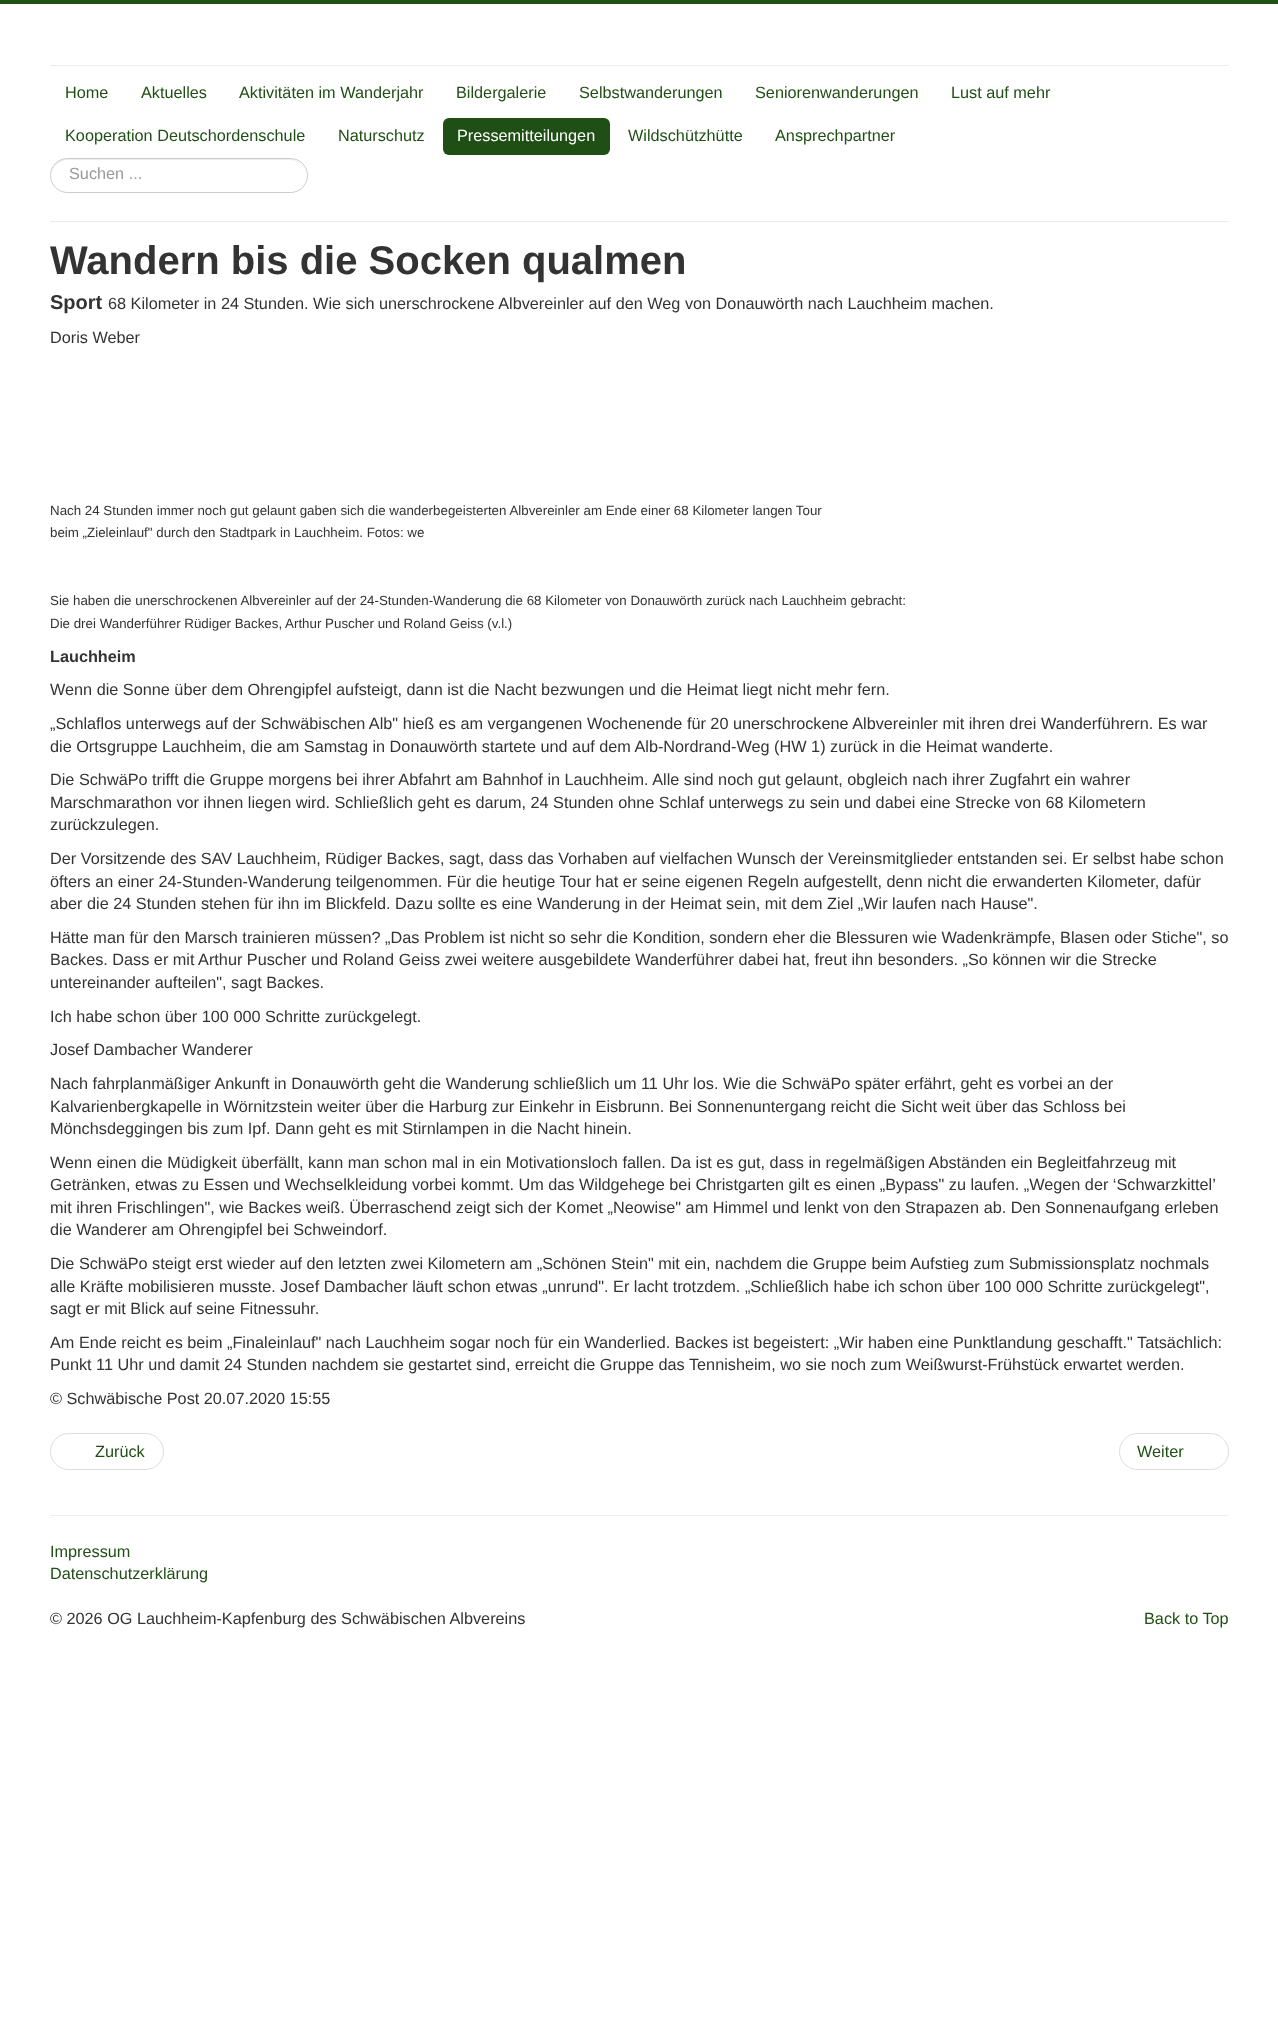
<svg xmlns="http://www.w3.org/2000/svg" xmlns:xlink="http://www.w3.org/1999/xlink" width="1278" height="2020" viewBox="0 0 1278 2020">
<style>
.cls-1{font:16.25px Liberation Sans;fill:#1f4f14}
.cls-2{font:16.25px Liberation Sans;fill:#ffffff}
.cls-3{font:16.25px Liberation Sans;fill:#999999}
.cls-4{font:bold 40px Liberation Sans;fill:#333333}
.cls-5{font:bold 20px Liberation Sans;fill:#333333}
.cls-6{font:16.25px Liberation Sans;fill:#333333}
.cls-7{font:13.33px Liberation Sans;fill:#333333}
.cls-8{font:bold 16.25px Liberation Sans;fill:#333333}
</style>
<rect width="100%" height="100%" fill="#ffffff"/>
<rect fill="#1f4f14" x="0" y="0" width="1278" height="4"/>
<rect fill="#ececec" x="50" y="65" width="1179" height="1"/>
<rect fill="#ececec" x="50" y="221" width="1179" height="1"/>
<rect fill="#1f4f14" x="443" y="118" width="167" height="37" rx="6"/>
<path fill="#ececec" d="M68 160H290C299 160 306 167 306 175C306 167 299 159 290 159H67C58 159 51 167 51 176C51 167 59 160 68 160Z"/>
<rect fill="none" stroke="#cccccc" x="50.5" y="158.5" width="257" height="34" rx="17"/>
<rect fill="none" stroke="#dddddd" x="50.5" y="1433.5" width="113" height="36" rx="18"/>
<rect fill="none" stroke="#dddddd" x="1119.5" y="1433.5" width="109" height="36" rx="18"/>
<rect fill="#eeeeee" x="50" y="1515" width="1179" height="1"/>
<text class="cls-1" x="65" y="98">Home</text>
<text class="cls-1" x="141" y="98">Aktuelles</text>
<text class="cls-1" x="239" y="98">Aktivitäten im Wanderjahr</text>
<text class="cls-1" x="456" y="98">Bildergalerie</text>
<text class="cls-1" x="579" y="98">Selbstwanderungen</text>
<text class="cls-1" x="755" y="98">Seniorenwanderungen</text>
<text class="cls-1" x="951" y="98">Lust auf mehr</text>
<text class="cls-1" x="65" y="141">Kooperation Deutschordenschule</text>
<text class="cls-1" x="338" y="141">Naturschutz</text>
<text class="cls-2" x="457" y="141">Pressemitteilungen</text>
<text class="cls-1" x="628" y="141">Wildschützhütte</text>
<text class="cls-1" x="775" y="141">Ansprechpartner</text>
<text class="cls-3" x="69" y="179">Suchen ...</text>
<text class="cls-4" x="50" y="274">Wandern bis die Socken qualmen</text>
<text class="cls-5" x="50" y="309">Sport</text>
<text class="cls-6" x="108" y="309">68 Kilometer in 24 Stunden. Wie sich unerschrockene Albvereinler auf den Weg von Donauwörth nach Lauchheim machen.</text>
<text class="cls-6" x="50" y="343">Doris Weber</text>
<text class="cls-7"><tspan x="50" y="515">Nach 24 Stunden immer noch gut gelaunt gaben sich die wanderbegeisterten Albvereinler am Ende einer 68 Kilometer langen Tour</tspan><tspan x="50" y="537">beim „Zieleinlauf" durch den Stadtpark in Lauchheim. Fotos: we</tspan></text>
<text class="cls-7"><tspan x="50" y="605">Sie haben die unerschrockenen Albvereinler auf der 24-Stunden-Wanderung die 68 Kilometer von Donauwörth zurück nach Lauchheim gebracht:</tspan><tspan x="50" y="628">Die drei Wanderführer Rüdiger Backes, Arthur Puscher und Roland Geiss (v.l.)</tspan></text>
<text class="cls-8" x="50" y="662">Lauchheim</text>
<text class="cls-6" x="50" y="695">Wenn die Sonne über dem Ohrengipfel aufsteigt, dann ist die Nacht bezwungen und die Heimat liegt nicht mehr fern.</text>
<text class="cls-6"><tspan x="50" y="729">„Schlaflos unterwegs auf der Schwäbischen Alb" hieß es am vergangenen Wochenende für 20 unerschrockene Albvereinler mit ihren drei Wanderführern. Es war</tspan><tspan x="50" y="752">die Ortsgruppe Lauchheim, die am Samstag in Donauwörth startete und auf dem Alb-Nordrand-Weg (HW 1) zurück in die Heimat wanderte.</tspan></text>
<text class="cls-6"><tspan x="50" y="785">Die SchwäPo trifft die Gruppe morgens bei ihrer Abfahrt am Bahnhof in Lauchheim. Alle sind noch gut gelaunt, obgleich nach ihrer Zugfahrt ein wahrer</tspan><tspan x="50" y="808">Marschmarathon vor ihnen liegen wird. Schließlich geht es darum, 24 Stunden ohne Schlaf unterwegs zu sein und dabei eine Strecke von 68 Kilometern</tspan><tspan x="50" y="830">zurückzulegen.</tspan></text>
<text class="cls-6"><tspan x="50" y="864">Der Vorsitzende des SAV Lauchheim, Rüdiger Backes, sagt, dass das Vorhaben auf vielfachen Wunsch der Vereinsmitglieder entstanden sei. Er selbst habe schon</tspan><tspan x="50" y="887">öfters an einer 24-Stunden-Wanderung teilgenommen. Für die heutige Tour hat er seine eigenen Regeln aufgestellt, denn nicht die erwanderten Kilometer, dafür</tspan><tspan x="50" y="909">aber die 24 Stunden stehen für ihn im Blickfeld. Dazu sollte es eine Wanderung in der Heimat sein, mit dem Ziel „Wir laufen nach Hause".</tspan></text>
<text class="cls-6"><tspan x="50" y="943">Hätte man für den Marsch trainieren müssen? „Das Problem ist nicht so sehr die Kondition, sondern eher die Blessuren wie Wadenkrämpfe, Blasen oder Stiche", so</tspan><tspan x="50" y="965">Backes. Dass er mit Arthur Puscher und Roland Geiss zwei weitere ausgebildete Wanderführer dabei hat, freut ihn besonders. „So können wir die Strecke</tspan><tspan x="50" y="988">untereinander aufteilen", sagt Backes.</tspan></text>
<text class="cls-6" x="50" y="1022">Ich habe schon über 100 000 Schritte zurückgelegt.</text>
<text class="cls-6" x="50" y="1055">Josef Dambacher Wanderer</text>
<text class="cls-6"><tspan x="50" y="1089">Nach fahrplanmäßiger Ankunft in Donauwörth geht die Wanderung schließlich um 11 Uhr los. Wie die SchwäPo später erfährt, geht es vorbei an der</tspan><tspan x="50" y="1112">Kalvarienbergkapelle in Wörnitzstein weiter über die Harburg zur Einkehr in Eisbrunn. Bei Sonnenuntergang reicht die Sicht weit über das Schloss bei</tspan><tspan x="50" y="1134">Mönchsdeggingen bis zum Ipf. Dann geht es mit Stirnlampen in die Nacht hinein.</tspan></text>
<text class="cls-6"><tspan x="50" y="1168">Wenn einen die Müdigkeit überfällt, kann man schon mal in ein Motivationsloch fallen. Da ist es gut, dass in regelmäßigen Abständen ein Begleitfahrzeug mit</tspan><tspan x="50" y="1190">Getränken, etwas zu Essen und Wechselkleidung vorbei kommt. Um das Wildgehege bei Christgarten gilt es einen „Bypass" zu laufen. „Wegen der ‘Schwarzkittel’</tspan><tspan x="50" y="1213">mit ihren Frischlingen", wie Backes weiß. Überraschend zeigt sich der Komet „Neowise" am Himmel und lenkt von den Strapazen ab. Den Sonnenaufgang erleben</tspan><tspan x="50" y="1235">die Wanderer am Ohrengipfel bei Schweindorf.</tspan></text>
<text class="cls-6"><tspan x="50" y="1269">Die SchwäPo steigt erst wieder auf den letzten zwei Kilometern am „Schönen Stein" mit ein, nachdem die Gruppe beim Aufstieg zum Submissionsplatz nochmals</tspan><tspan x="50" y="1292">alle Kräfte mobilisieren musste. Josef Dambacher läuft schon etwas „unrund". Er lacht trotzdem. „Schließlich habe ich schon über 100 000 Schritte zurückgelegt",</tspan><tspan x="50" y="1314">sagt er mit Blick auf seine Fitnessuhr.</tspan></text>
<text class="cls-6"><tspan x="50" y="1348">Am Ende reicht es beim „Finaleinlauf" nach Lauchheim sogar noch für ein Wanderlied. Backes ist begeistert: „Wir haben eine Punktlandung geschafft." Tatsächlich:</tspan><tspan x="50" y="1370">Punkt 11 Uhr und damit 24 Stunden nachdem sie gestartet sind, erreicht die Gruppe das Tennisheim, wo sie noch zum Weißwurst-Frühstück erwartet werden.</tspan></text>
<text class="cls-6" x="50" y="1404">© Schwäbische Post 20.07.2020 15:55</text>
<text class="cls-1" x="95" y="1457">Zurück</text>
<text class="cls-1" x="1137" y="1457">Weiter</text>
<text class="cls-1"><tspan x="50" y="1557">Impressum</tspan><tspan x="50" y="1579">Datenschutzerklärung</tspan></text>
<text class="cls-6" x="50" y="1624">© 2026 OG Lauchheim-Kapfenburg des Schwäbischen Albvereins</text>
<text class="cls-1" x="1144" y="1624">Back to Top</text>
</svg>
